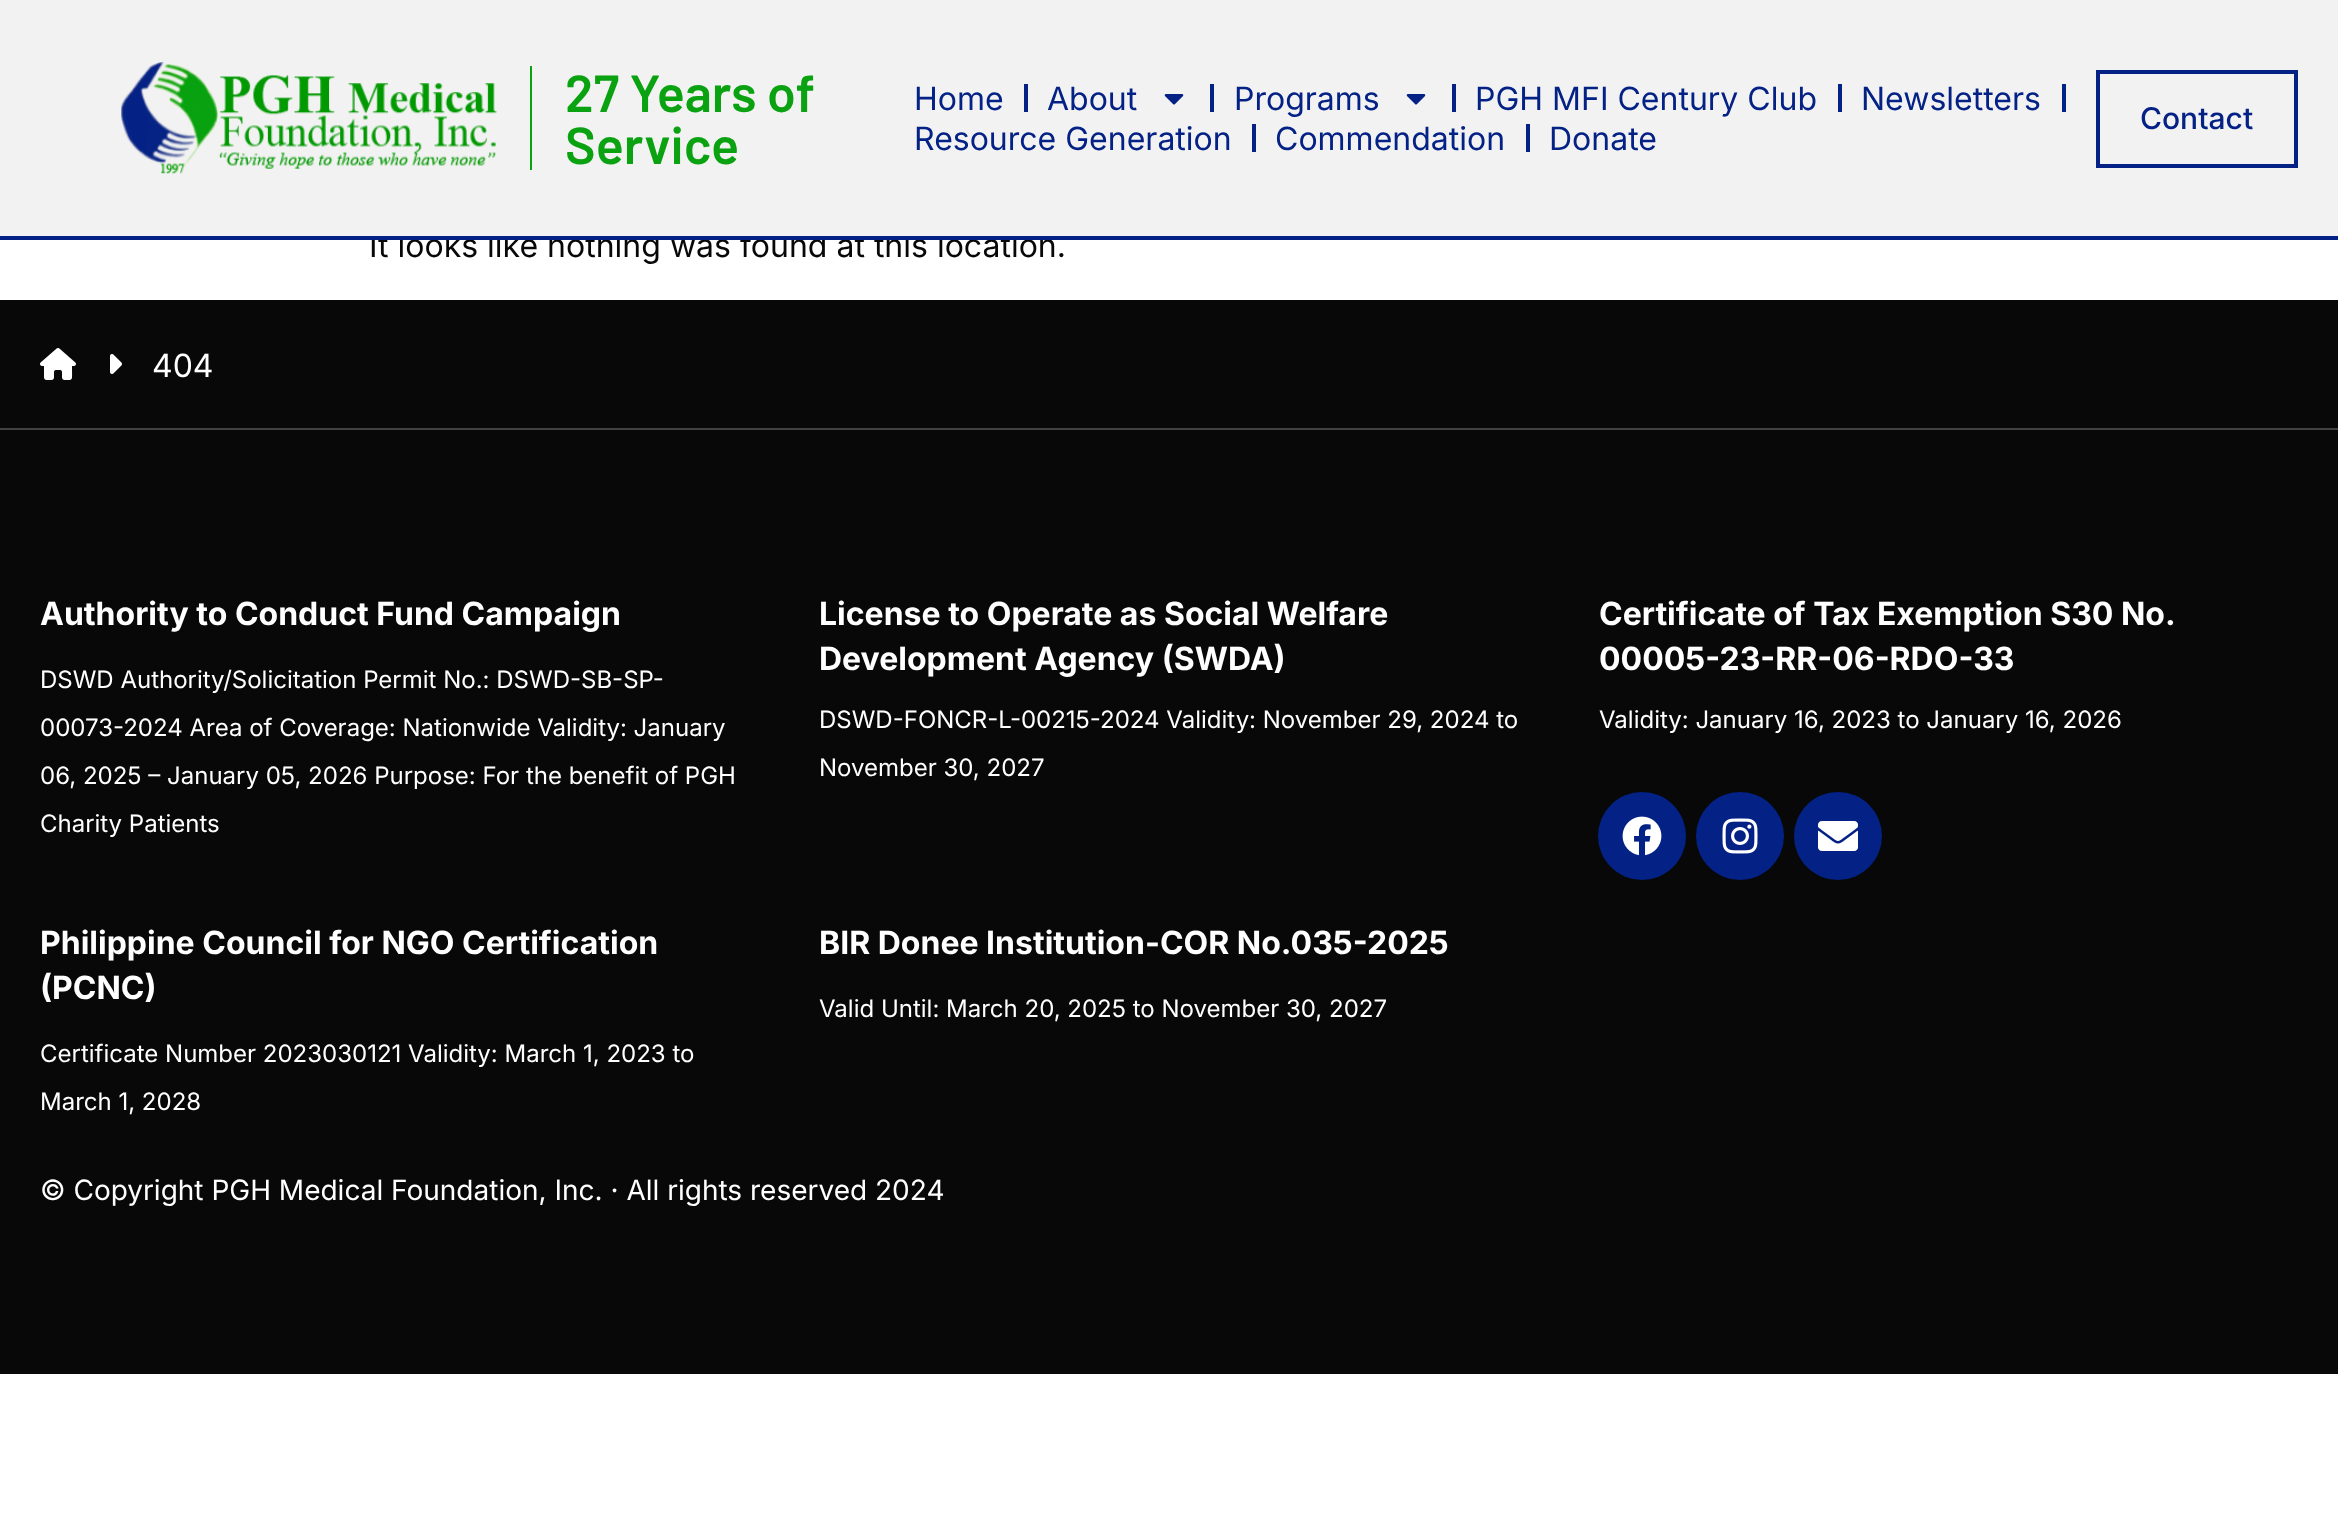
<svg xmlns="http://www.w3.org/2000/svg" xmlns:xlink="http://www.w3.org/1999/xlink" width="2338" height="1540" viewBox="0 0 2338 1540">
<style>
.cls-1{font:32px Inter;fill:#080808}
.cls-2{font:32px Inter;fill:#042185}
.cls-3{font:500 30px Inter;fill:#042185}
.cls-4{font:600 52px Barlow;fill:#0aa211}
.cls-5{font:32px Inter;fill:#ffffff}
.cls-6{font:bold 32px Inter;fill:#ffffff}
.cls-7{font:24px Inter;fill:#ffffff}
.cls-8{font:28px Inter;fill:#ffffff}
</style>
<rect width="100%" height="100%" fill="#ffffff"/>
<rect fill="#080808" x="0" y="300" width="2338" height="128"/>
<rect fill="#414141" x="0" y="428" width="2338" height="2"/>
<image xlink:href="image2.png" x="40" y="348" width="36" height="32"/>
<image xlink:href="image3.png" x="110" y="354" width="12" height="20"/>
<rect fill="#080808" x="0" y="430" width="2338" height="944"/>
<circle fill="#042185" cx="1642" cy="836" r="44"/>
<image xlink:href="image4.png" x="1622" y="816" width="40" height="40"/>
<circle fill="#042185" cx="1740" cy="836" r="44"/>
<image xlink:href="image5.png" x="1722" y="818" width="36" height="36"/>
<circle fill="#042185" cx="1838" cy="836" r="44"/>
<image xlink:href="image6.png" x="1818" y="821" width="40" height="30"/>
<text class="cls-1" x="369" y="257">It looks like nothing was found at this location.</text>
<rect fill="#f2f2f2" x="0" y="0" width="2338" height="236"/>
<text class="cls-2" x="1549" y="150">Donate</text>
<text class="cls-2" x="1275" y="150">Commendation</text>
<rect fill="#042185" x="1526" y="124" width="4" height="28"/>
<text class="cls-2" x="914" y="150">Resource Generation</text>
<rect fill="#042185" x="1252" y="124" width="4" height="28"/>
<text class="cls-2" x="1861" y="110">Newsletters</text>
<rect fill="#042185" x="2062" y="84" width="4" height="28"/>
<text class="cls-2" x="1475" y="110">PGH MFI Century Club</text>
<rect fill="#042185" x="1838" y="84" width="4" height="28"/>
<image xlink:href="image1.png" x="1406" y="94" width="20" height="11"/>
<text class="cls-2" x="1234" y="110">Programs</text>
<rect fill="#042185" x="1452" y="84" width="4" height="28"/>
<image xlink:href="image1.png" x="1164" y="94" width="20" height="11"/>
<text class="cls-2" x="1047" y="110">About</text>
<rect fill="#042185" x="1210" y="84" width="4" height="28"/>
<text class="cls-2" x="914" y="110">Home</text>
<rect fill="#042185" x="1024" y="84" width="4" height="28"/>
<rect fill="none" stroke="#042185" stroke-width="4" x="2098" y="72" width="198" height="94"/>
<text class="cls-3" x="2140" y="129">Contact</text>
<text class="cls-4" x="565" y="164">Service</text>
<text class="cls-4" x="565" y="112">27 Years of</text>
<rect fill="#0aa211" x="530" y="66" width="2" height="104"/>
<image xlink:href="image0.png" x="121" y="62" width="376" height="112"/>
<rect fill="#042185" x="0" y="236" width="2338" height="4"/>
<text class="cls-5" x="152" y="377">404</text>
<text class="cls-6" x="40" y="625">Authority to Conduct Fund Campaign</text>
<text class="cls-7" x="40" y="688">DSWD Authority/Solicitation Permit No.: DSWD-SB-SP-</text>
<text class="cls-7" x="40" y="736">00073-2024 Area of Coverage: Nationwide Validity: January</text>
<text class="cls-7" x="40" y="784">06, 2025 – January 05, 2026 Purpose: For the benefit of PGH</text>
<text class="cls-7" x="40" y="832">Charity Patients</text>
<text class="cls-6"><tspan x="819" y="625">License to Operate as Social Welfare</tspan><tspan x="819" y="670">Development Agency (SWDA)</tspan></text>
<text class="cls-7" x="819" y="728">DSWD-FONCR-L-00215-2024 Validity: November 29, 2024 to</text>
<text class="cls-7" x="819" y="776">November 30, 2027</text>
<text class="cls-6"><tspan x="1599" y="625">Certificate of Tax Exemption S30 No.</tspan><tspan x="1599" y="670">00005-23-RR-06-RDO-33</tspan></text>
<text class="cls-7" x="1599" y="728">Validity: January 16, 2023 to January 16, 2026</text>
<text class="cls-6"><tspan x="40" y="954">Philippine Council for NGO Certification</tspan><tspan x="40" y="999">(PCNC)</tspan></text>
<text class="cls-7" x="40" y="1062">Certificate Number 2023030121 Validity: March 1, 2023 to</text>
<text class="cls-7" x="40" y="1110">March 1, 2028</text>
<text class="cls-6" x="819" y="954">BIR Donee Institution-COR No.035-2025</text>
<text class="cls-7" x="819" y="1017">Valid Until: March 20, 2025 to November 30, 2027</text>
<text class="cls-8" x="40" y="1200">© Copyright PGH Medical Foundation, Inc. · All rights reserved 2024</text>
</svg>
